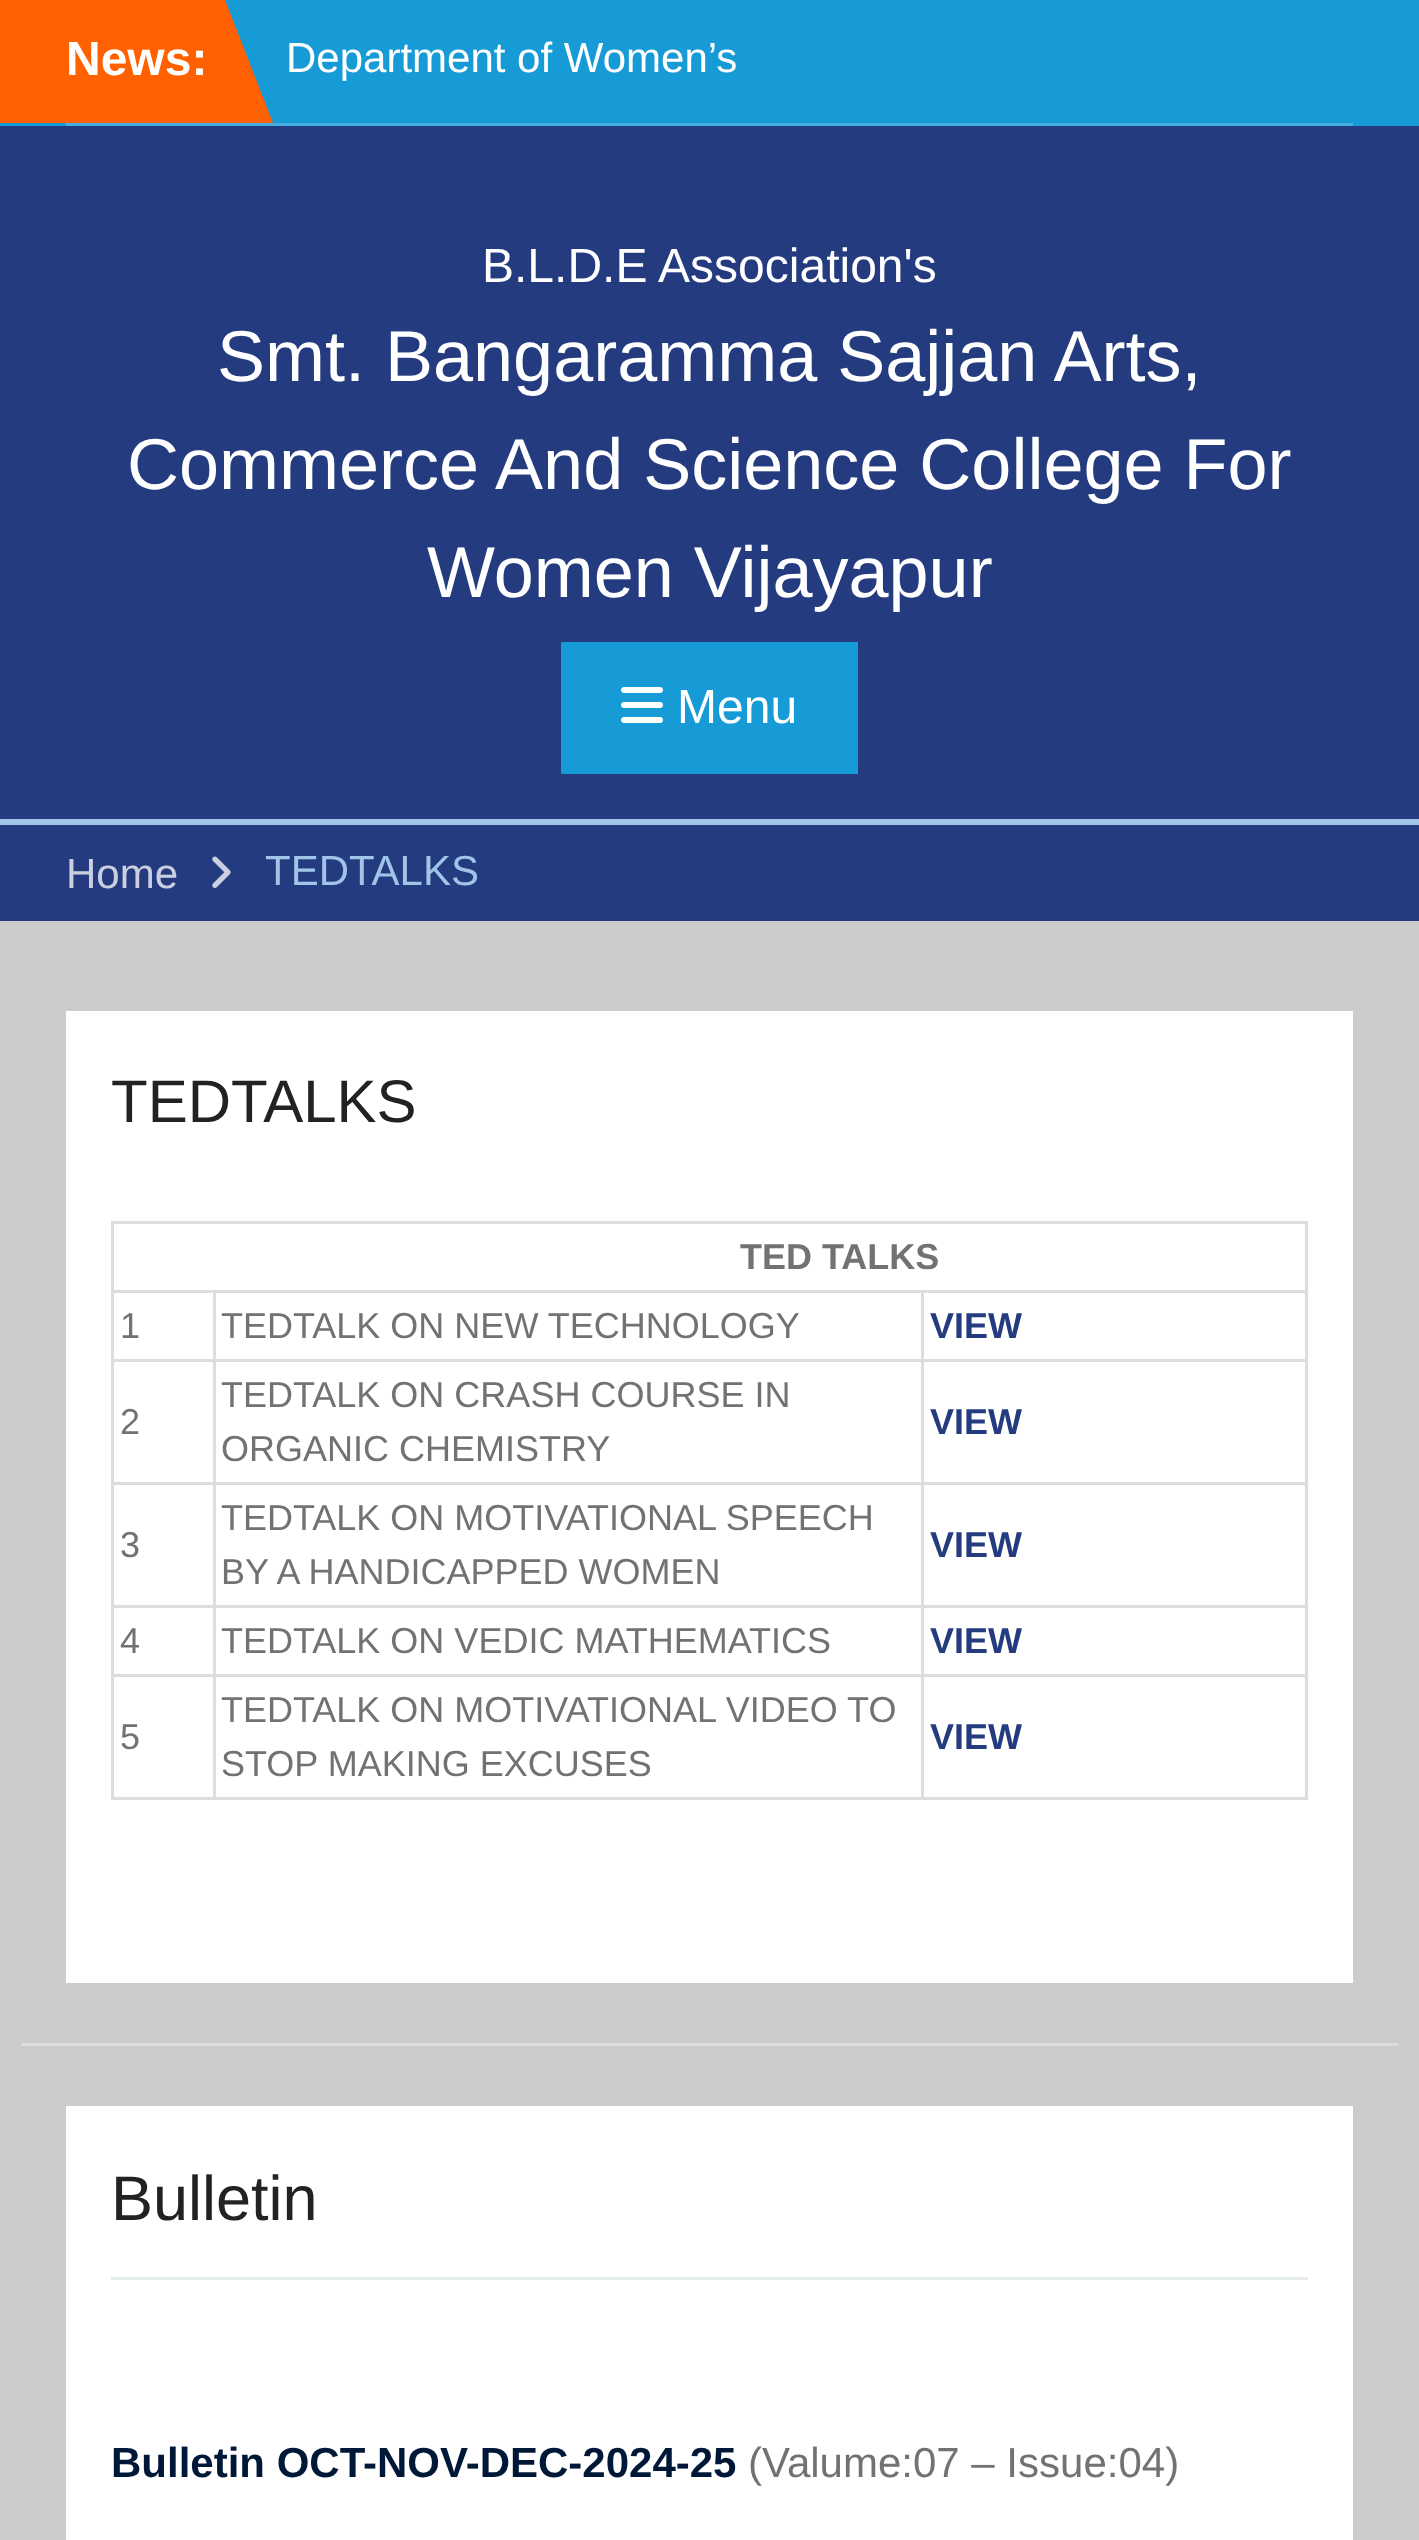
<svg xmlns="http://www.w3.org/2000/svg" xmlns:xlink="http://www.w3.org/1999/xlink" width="1419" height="2540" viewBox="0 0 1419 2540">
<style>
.cls-1{font:bold 48px Liberation Sans;fill:#ffffff}
.cls-2{font:42px Liberation Sans;fill:#ffffff}
.cls-3{font:48px Liberation Sans;fill:#ffffff}
.cls-4{font:72px Liberation Sans;fill:#ffffff}
.cls-5{font:42px Liberation Sans;fill:#cbd0e1}
.cls-6{font:42px Liberation Sans;fill:#a0c5e8}
.cls-7{font:60px Liberation Sans;fill:#222222}
.cls-8{font:bold 36px Liberation Sans;fill:#727272}
.cls-9{font:36px Liberation Sans;fill:#727272}
.cls-10{font:bold 36px Liberation Sans;fill:#253b80}
.cls-11{font:63px Liberation Sans;fill:#222222}
.cls-12{font:bold 42px Liberation Sans;fill:#001837}
.cls-13{font:42px Liberation Sans;fill:#727272}
</style>
<rect width="100%" height="100%" fill="#cccccc"/>
<rect fill="#179bd7" x="0" y="0" width="1419" height="126"/>
<rect fill="#ff6000" x="0" y="0" width="225" height="123"/>
<path fill="#ff6000" d="M225 123V0L273 123Z"/>
<rect fill="#45afdf" x="66" y="123" width="1287" height="3"/>
<rect fill="#253b80" x="0" y="126" width="1419" height="693"/>
<rect fill="#179bd7" x="561" y="642" width="297" height="132"/>
<image xlink:href="image0.png" x="621" y="687" width="42" height="36"/>
<rect fill="#253b80" x="0" y="825" width="1419" height="96"/>
<rect fill="#a0c5e8" x="0" y="819" width="1419" height="6"/>
<image xlink:href="image1.png" x="212" y="856" width="19" height="32"/>
<rect fill="#dddddd" x="21" y="2043" width="1377" height="3"/>
<rect fill="#ffffff" x="66" y="1011" width="1287" height="972"/>
<rect fill="#dddddd" x="111" y="1221" width="1197" height="3"/>
<rect fill="#dddddd" x="921" y="1290" width="387" height="3"/>
<rect fill="#dddddd" x="921" y="1359" width="387" height="3"/>
<rect fill="#dddddd" x="921" y="1482" width="387" height="3"/>
<rect fill="#dddddd" x="921" y="1605" width="387" height="3"/>
<rect fill="#dddddd" x="921" y="1674" width="387" height="3"/>
<rect fill="#dddddd" x="1305" y="1674" width="3" height="126"/>
<rect fill="#dddddd" x="1305" y="1605" width="3" height="72"/>
<rect fill="#dddddd" x="1305" y="1482" width="3" height="126"/>
<rect fill="#dddddd" x="1305" y="1359" width="3" height="126"/>
<rect fill="#dddddd" x="1305" y="1290" width="3" height="72"/>
<rect fill="#dddddd" x="1305" y="1221" width="3" height="72"/>
<rect fill="#dddddd" x="921" y="1797" width="387" height="3"/>
<rect fill="#dddddd" x="921" y="1674" width="3" height="126"/>
<rect fill="#dddddd" x="213" y="1674" width="711" height="3"/>
<rect fill="#dddddd" x="921" y="1605" width="3" height="72"/>
<rect fill="#dddddd" x="213" y="1605" width="711" height="3"/>
<rect fill="#dddddd" x="921" y="1482" width="3" height="126"/>
<rect fill="#dddddd" x="213" y="1482" width="711" height="3"/>
<rect fill="#dddddd" x="921" y="1359" width="3" height="126"/>
<rect fill="#dddddd" x="213" y="1359" width="711" height="3"/>
<rect fill="#dddddd" x="921" y="1290" width="3" height="72"/>
<rect fill="#dddddd" x="213" y="1290" width="711" height="3"/>
<rect fill="#dddddd" x="213" y="1797" width="711" height="3"/>
<rect fill="#dddddd" x="213" y="1674" width="3" height="126"/>
<rect fill="#dddddd" x="111" y="1674" width="105" height="3"/>
<rect fill="#dddddd" x="213" y="1605" width="3" height="72"/>
<rect fill="#dddddd" x="111" y="1605" width="105" height="3"/>
<rect fill="#dddddd" x="213" y="1482" width="3" height="126"/>
<rect fill="#dddddd" x="111" y="1482" width="105" height="3"/>
<rect fill="#dddddd" x="213" y="1359" width="3" height="126"/>
<rect fill="#dddddd" x="111" y="1359" width="105" height="3"/>
<rect fill="#dddddd" x="213" y="1290" width="3" height="72"/>
<rect fill="#dddddd" x="111" y="1290" width="105" height="3"/>
<rect fill="#dddddd" x="111" y="1797" width="105" height="3"/>
<rect fill="#dddddd" x="111" y="1674" width="3" height="126"/>
<rect fill="#dddddd" x="111" y="1605" width="3" height="72"/>
<rect fill="#dddddd" x="111" y="1482" width="3" height="126"/>
<rect fill="#dddddd" x="111" y="1359" width="3" height="126"/>
<rect fill="#dddddd" x="111" y="1290" width="3" height="72"/>
<rect fill="#dddddd" x="111" y="1221" width="3" height="72"/>
<rect fill="#ffffff" x="66" y="2106" width="1287" height="434"/>
<rect fill="#e7ecef" x="111" y="2277" width="1197" height="3"/>
<text class="cls-1" x="66" y="75">News:</text>
<text class="cls-2" x="286" y="72">Department of Women’s</text>
<text class="cls-3" x="482" y="282">B.L.D.E Association's</text>
<text class="cls-4" x="217" y="381">Smt. Bangaramma Sajjan Arts,</text>
<text class="cls-4" x="127" y="489">Commerce And Science College For</text>
<text class="cls-4" x="427" y="597">Women Vijayapur</text>
<text class="cls-3" x="677" y="723">Menu</text>
<text class="cls-5" x="66" y="888">Home</text>
<text class="cls-6" x="265" y="885">TEDTALKS</text>
<text class="cls-7" x="111" y="1122">TEDTALKS</text>
<text class="cls-8" x="740" y="1269">TED TALKS</text>
<text class="cls-9" x="120" y="1338">1</text>
<text class="cls-9" x="221" y="1338">TEDTALK ON NEW TECHNOLOGY</text>
<text class="cls-10" x="930" y="1338">VIEW</text>
<text class="cls-9" x="120" y="1434">2</text>
<text class="cls-9"><tspan x="221" y="1407">TEDTALK ON CRASH COURSE IN</tspan><tspan x="221" y="1461">ORGANIC CHEMISTRY</tspan></text>
<text class="cls-10" x="930" y="1434">VIEW</text>
<text class="cls-9" x="120" y="1557">3</text>
<text class="cls-9"><tspan x="221" y="1530">TEDTALK ON MOTIVATIONAL SPEECH</tspan><tspan x="221" y="1584">BY A HANDICAPPED WOMEN</tspan></text>
<text class="cls-10" x="930" y="1557">VIEW</text>
<text class="cls-9" x="120" y="1653">4</text>
<text class="cls-9" x="221" y="1653">TEDTALK ON VEDIC MATHEMATICS</text>
<text class="cls-10" x="930" y="1653">VIEW</text>
<text class="cls-9" x="120" y="1749">5</text>
<text class="cls-9"><tspan x="221" y="1722">TEDTALK ON MOTIVATIONAL VIDEO TO</tspan><tspan x="221" y="1776">STOP MAKING EXCUSES</tspan></text>
<text class="cls-10" x="930" y="1749">VIEW</text>
<text class="cls-11" x="111" y="2220">Bulletin</text>
<text class="cls-12" x="111" y="2477">Bulletin OCT-NOV-DEC-2024-25</text>
<text class="cls-13" x="748" y="2477">(Valume:07 – Issue:04)</text>
</svg>
